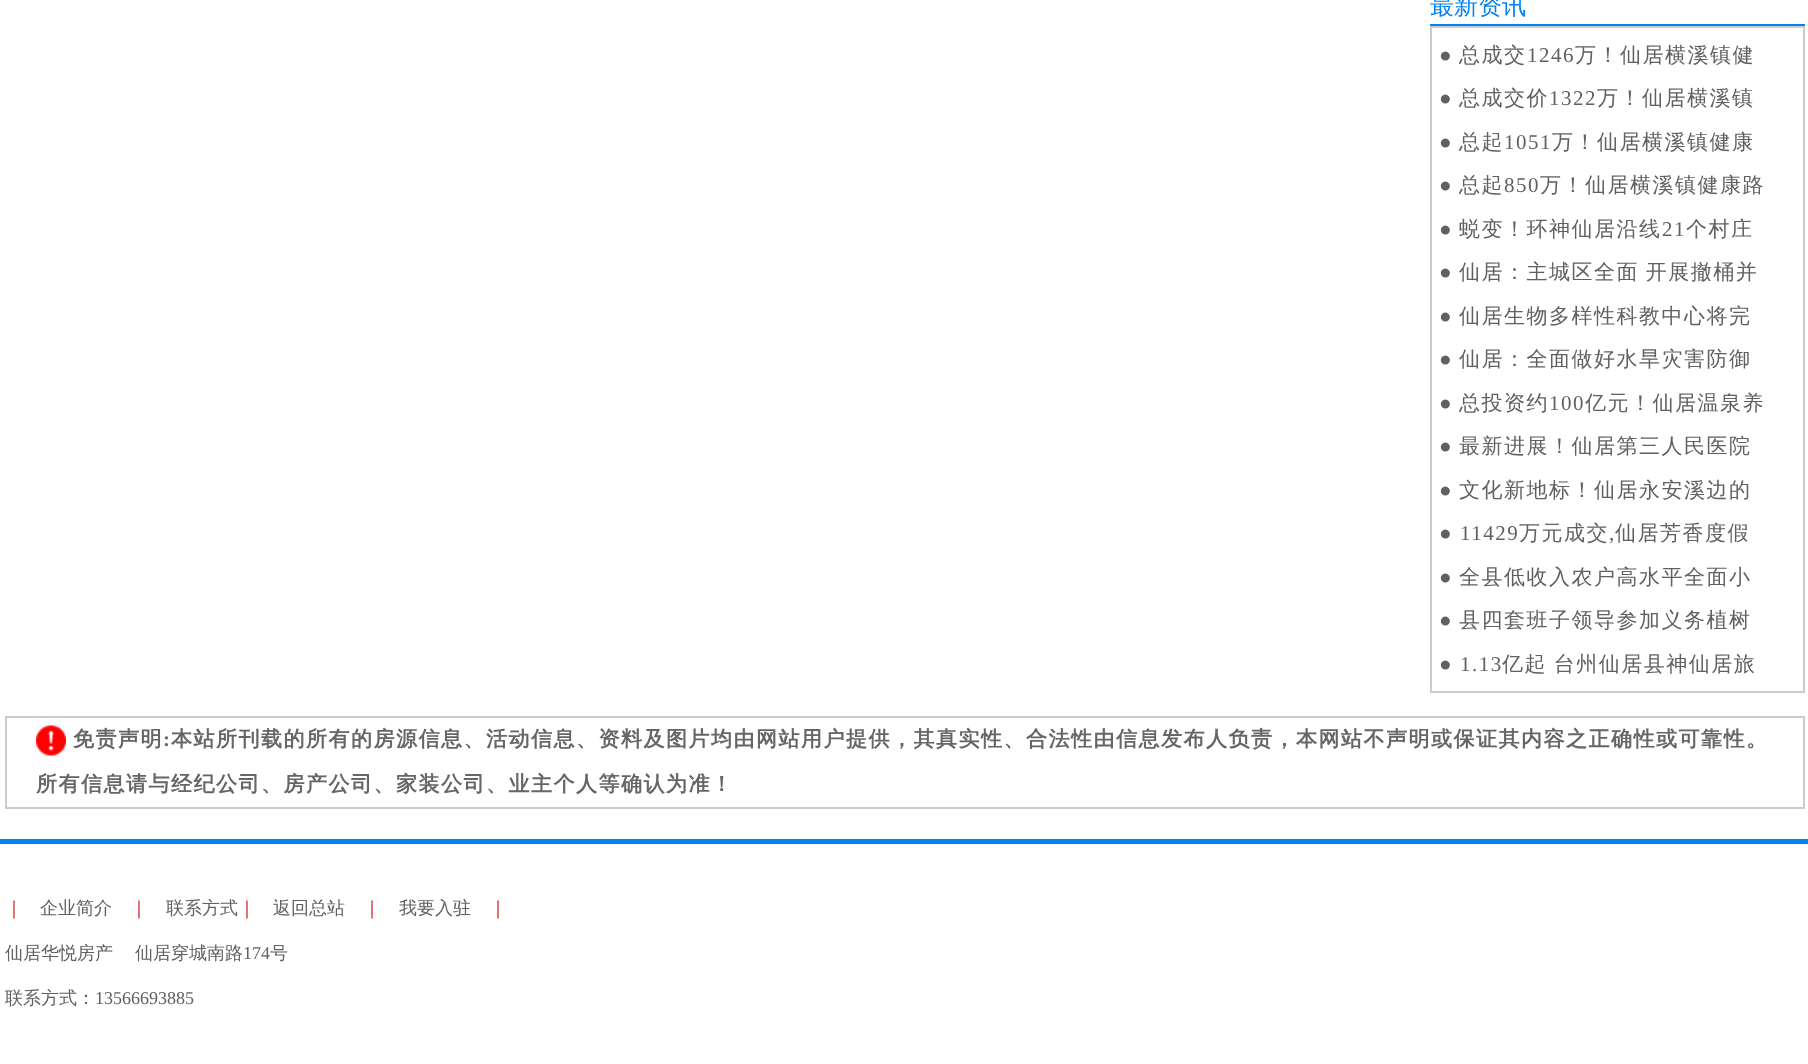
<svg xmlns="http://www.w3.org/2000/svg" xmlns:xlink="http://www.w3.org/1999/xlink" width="1808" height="1064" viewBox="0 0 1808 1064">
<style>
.cls-1{font:500 24px WenQuanYi Zen Hei;fill:#0083f6}
.cls-2{font:21px Liberation Serif;letter-spacing:1.5px;fill:#606060}
.cls-3{font:500 21px WenQuanYi Zen Hei;letter-spacing:1.5px;fill:#606060}
.cls-4{font:bold 21px WenQuanYi Zen Hei;letter-spacing:1.5px;fill:#666666}
.cls-5{font:bold 21px Liberation Serif;letter-spacing:1.5px;fill:#666666}
.cls-6{font:500 18px WenQuanYi Zen Hei;fill:#cc0000}
.cls-7{font:500 18px WenQuanYi Zen Hei;fill:#606060}
.cls-8{font:18px Liberation Serif;fill:#606060}
</style>
<defs>
<clipPath id="clip1"><rect x="5" y="878" width="1800" height="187"/></clipPath>
</defs>
<rect width="100%" height="100%" fill="#ffffff"/>
<rect fill="#0083f6" x="1430" y="24" width="375" height="2"/>
<rect fill="none" stroke="#cccccc" stroke-width="2" x="1431" y="27" width="373" height="665"/>
<rect fill="none" stroke="#cccccc" stroke-width="2" x="6" y="717" width="1798" height="91"/>
<image xlink:href="image0.png" x="36" y="725" width="30" height="31"/>
<rect fill="#0083f6" x="0" y="839" width="1808" height="5"/>
<text class="cls-1" x="1430" y="14">最新资讯</text>
<text class="cls-2" x="1439" y="62">●</text>
<text class="cls-3" x="1459" y="62">总成交</text>
<text class="cls-2" x="1527" y="62">1246</text>
<text class="cls-3" x="1575" y="62">万！仙居横溪镇健</text>
<text class="cls-2" x="1439" y="105">●</text>
<text class="cls-3" x="1459" y="105">总成交价</text>
<text class="cls-2" x="1549" y="105">1322</text>
<text class="cls-3" x="1597" y="105">万！仙居横溪镇</text>
<text class="cls-2" x="1439" y="149">●</text>
<text class="cls-3" x="1459" y="149">总起</text>
<text class="cls-2" x="1504" y="149">1051</text>
<text class="cls-3" x="1552" y="149">万！仙居横溪镇健康</text>
<text class="cls-2" x="1439" y="192">●</text>
<text class="cls-3" x="1459" y="192">总起</text>
<text class="cls-2" x="1504" y="192">850</text>
<text class="cls-3" x="1540" y="192">万！仙居横溪镇健康路</text>
<text class="cls-2" x="1439" y="236">●</text>
<text class="cls-3" x="1459" y="236">蜕变！环神仙居沿线</text>
<text class="cls-2" x="1662" y="236">21</text>
<text class="cls-3" x="1686" y="236">个村庄</text>
<text class="cls-2" x="1439" y="279">●</text>
<text class="cls-3" x="1459" y="279" word-spacing="-1">仙居：主城区全面 开展撤桶并</text>
<text class="cls-2" x="1439" y="323">●</text>
<text class="cls-3" x="1459" y="323">仙居生物多样性科教中心将完</text>
<text class="cls-2" x="1439" y="366">●</text>
<text class="cls-3" x="1459" y="366">仙居：全面做好水旱灾害防御</text>
<text class="cls-2" x="1439" y="410">●</text>
<text class="cls-3" x="1459" y="410">总投资约</text>
<text class="cls-2" x="1549" y="410">100</text>
<text class="cls-3" x="1585" y="410">亿元！仙居温泉养</text>
<text class="cls-2" x="1439" y="453">●</text>
<text class="cls-3" x="1459" y="453">最新进展！仙居第三人民医院</text>
<text class="cls-2" x="1439" y="497">●</text>
<text class="cls-3" x="1459" y="497">文化新地标！仙居永安溪边的</text>
<text class="cls-2" x="1439" y="540">● 11429</text>
<text class="cls-3" x="1519" y="540">万元成交</text>
<text class="cls-2" x="1609" y="540">,</text>
<text class="cls-3" x="1615" y="540">仙居芳香度假</text>
<text class="cls-2" x="1439" y="584">●</text>
<text class="cls-3" x="1459" y="584">全县低收入农户高水平全面小</text>
<text class="cls-2" x="1439" y="627">●</text>
<text class="cls-3" x="1459" y="627">县四套班子领导参加义务植树</text>
<text class="cls-2" x="1439" y="671">● 1.13</text>
<text class="cls-3" x="1502" y="671" word-spacing="-1">亿起 台州仙居县神仙居旅</text>
<text class="cls-4" x="73" y="746">免责声明</text>
<text class="cls-5" x="163" y="746">:</text>
<text class="cls-4" x="171" y="746">本站所刊载的所有的房源信息、活动信息、资料及图片均由网站用户提供，其真实性、合法性由信息发布人负责，本网站不声明或保证其内容之正确性或可靠性。</text>
<text class="cls-4" x="36" y="791">所有信息请与经纪公司、房产公司、家装公司、业主个人等确认为准！</text>
<text class="cls-6" x="5" y="914">｜</text>
<text class="cls-7" x="40" y="914">企业简介</text>
<text class="cls-6" x="130" y="914">｜</text>
<text class="cls-7" x="166" y="914">联系方式</text>
<text class="cls-6" x="238" y="914">｜</text>
<text class="cls-7" x="273" y="914">返回总站</text>
<text class="cls-6" x="363" y="914">｜</text>
<text class="cls-7" x="399" y="914">我要入驻</text>
<text class="cls-6" x="489" y="914">｜</text>
<text class="cls-7" x="5" y="959">仙居华悦房产</text>
<text class="cls-7" x="135" y="959">仙居穿城南路</text>
<text class="cls-8" x="243" y="959">174</text>
<text class="cls-7" x="270" y="959">号</text>
<g clip-path="url(#clip1)">
<text class="cls-7" x="5" y="1004">联系方式：</text>
</g>
<text class="cls-8" x="95" y="1004">13566693885</text>
</svg>
